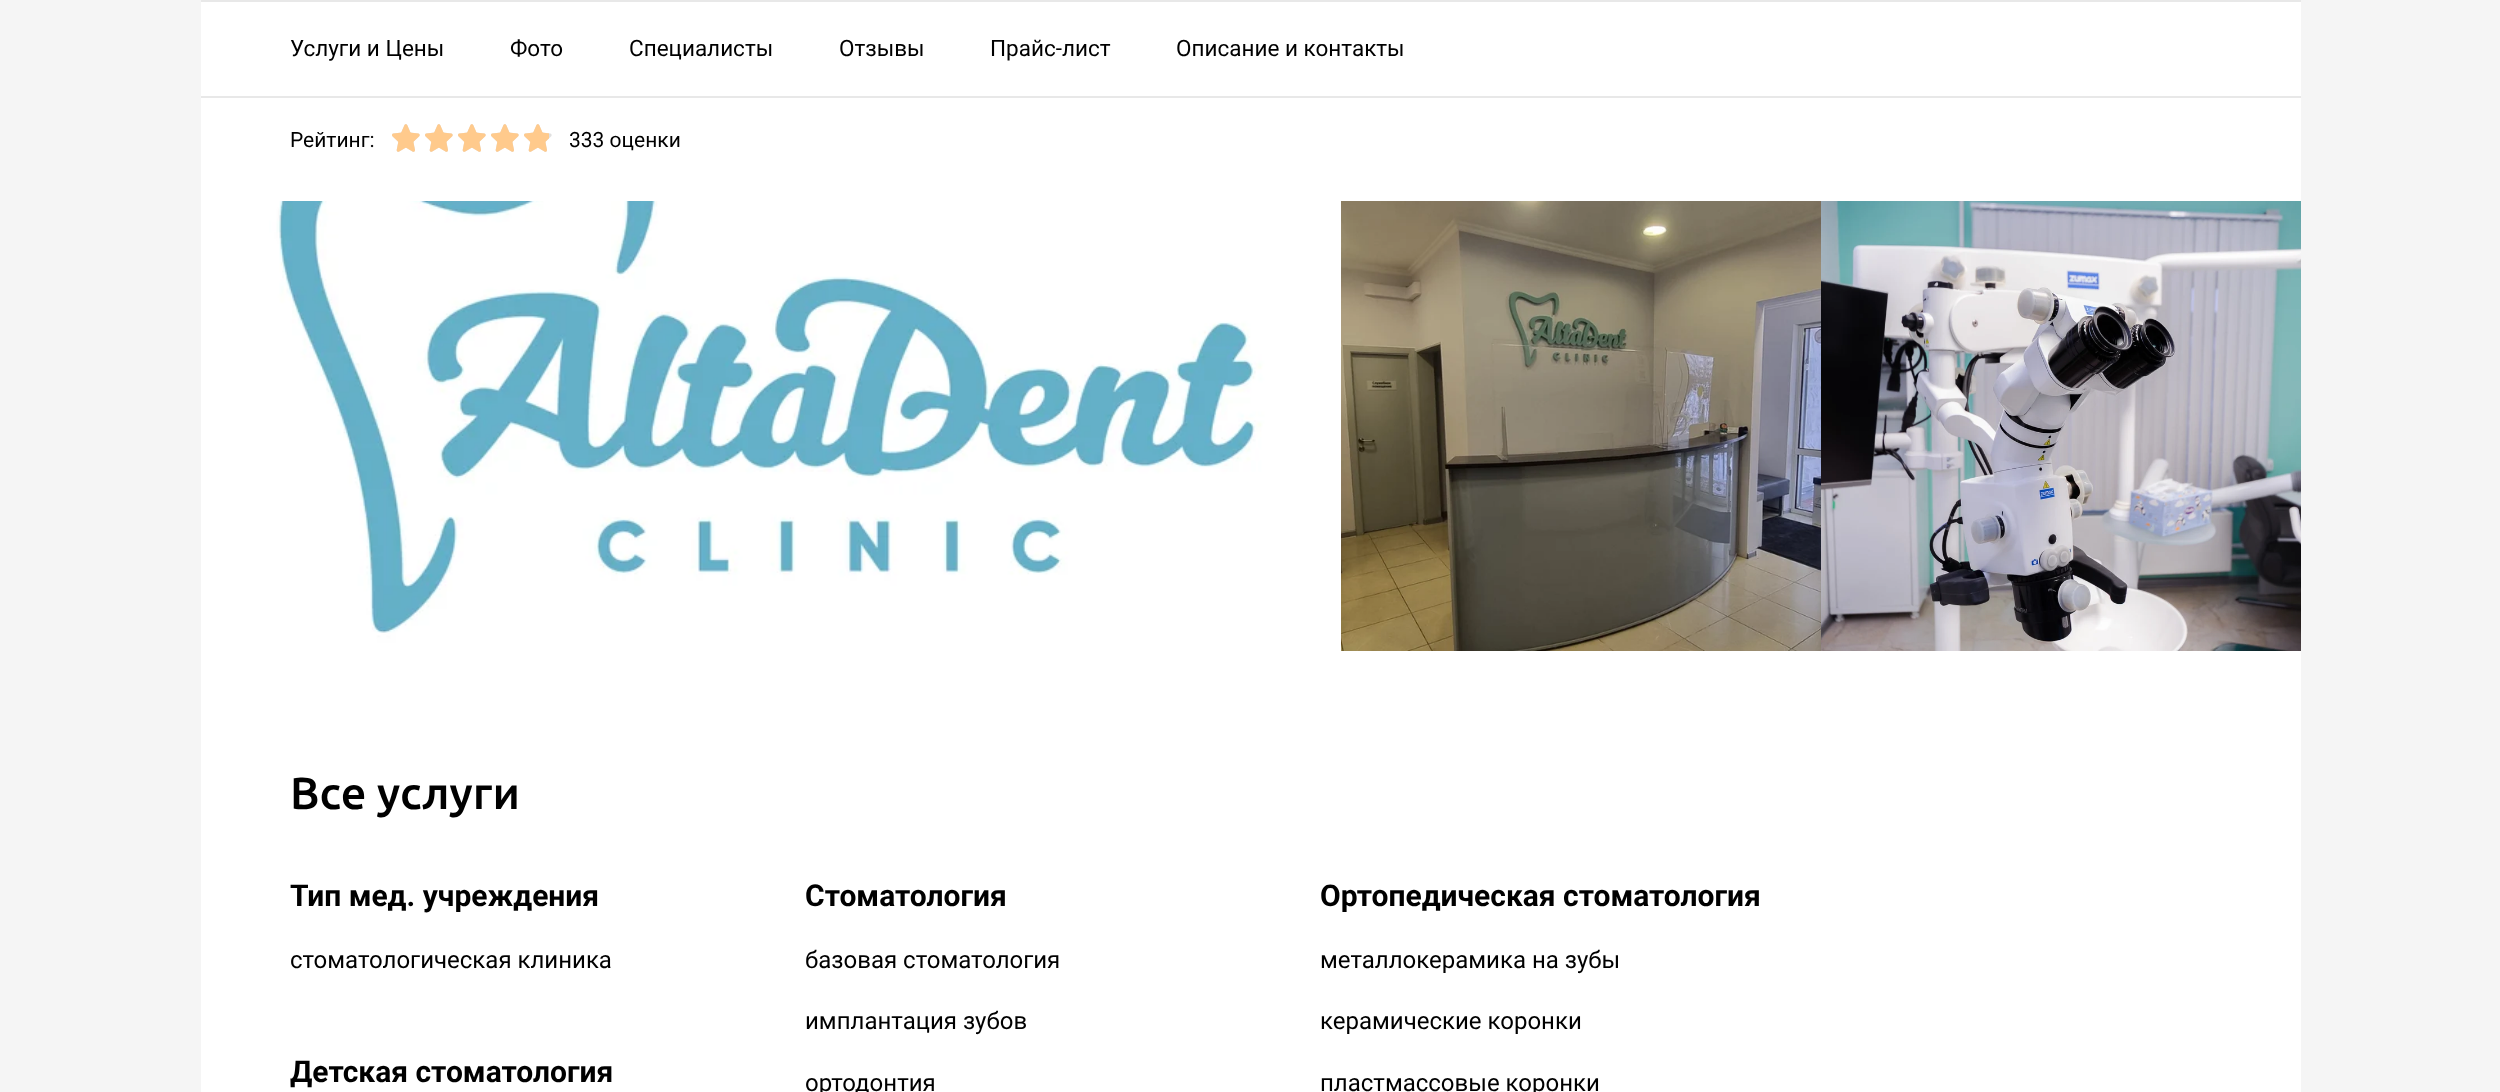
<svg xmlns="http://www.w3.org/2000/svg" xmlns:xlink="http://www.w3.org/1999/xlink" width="2500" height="1092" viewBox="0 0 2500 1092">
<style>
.cls-1{font:22.5px Roboto;fill:#000000}
.cls-2{font:21px Roboto;fill:#000000}
.cls-3{font:500 45px Ubuntu;fill:#000000}
.cls-4{font:bold 30px Roboto;fill:#000000}
.cls-5{font:24px Roboto;fill:#000000}
</style>
<rect width="100%" height="100%" fill="#f5f5f5"/>
<rect fill="#ffffff" x="201" y="98" width="2100" height="994"/>
<rect fill="#e8e8e8" x="201" y="0" width="2100" height="2"/>
<rect fill="#e8e8e8" x="201" y="96" width="2100" height="2"/>
<rect fill="#ffffff" x="201" y="2" width="2100" height="94"/>
<image xlink:href="image0.png" x="392" y="124" width="28" height="28"/>
<image xlink:href="image1.png" x="392" y="124" width="28" height="28"/>
<image xlink:href="image0.png" x="425" y="124" width="28" height="28"/>
<image xlink:href="image1.png" x="425" y="124" width="28" height="28"/>
<image xlink:href="image0.png" x="458" y="124" width="28" height="28"/>
<image xlink:href="image1.png" x="458" y="124" width="28" height="28"/>
<image xlink:href="image0.png" x="491" y="124" width="28" height="28"/>
<image xlink:href="image1.png" x="491" y="124" width="28" height="28"/>
<image xlink:href="image0.png" x="524" y="124" width="28" height="28"/>
<image xlink:href="image2.png" x="524" y="124" width="25" height="28"/>
<image xlink:href="image3.png" x="201" y="201" width="1140" height="450"/>
<image xlink:href="image4.png" x="1341" y="201" width="480" height="450"/>
<image xlink:href="image5.png" x="1821" y="201" width="480" height="450"/>
<text class="cls-1" x="290" y="56">Услуги и Цены</text>
<text class="cls-1" x="510" y="56">Фото</text>
<text class="cls-1" x="629" y="56">Специалисты</text>
<text class="cls-1" x="839" y="56">Отзывы</text>
<text class="cls-1" x="990" y="56">Прайс-лист</text>
<text class="cls-1" x="1176" y="56">Описание и контакты</text>
<text class="cls-2" x="290" y="147">Рейтинг:</text>
<text class="cls-2" x="569" y="147">333 оценки</text>
<text class="cls-3" x="290" y="809">Все услуги</text>
<text class="cls-4" x="290" y="906">Тип мед. учреждения</text>
<text class="cls-5" x="290" y="968">стоматологическая клиника</text>
<text class="cls-4" x="290" y="1082">Детская стоматология</text>
<text class="cls-4" x="805" y="906">Стоматология</text>
<text class="cls-5" x="805" y="968">базовая стоматология</text>
<text class="cls-5" x="805" y="1029">имплантация зубов</text>
<text class="cls-5" x="805" y="1091">ортодонтия</text>
<text class="cls-4" x="1320" y="906">Ортопедическая стоматология</text>
<text class="cls-5" x="1320" y="968">металлокерамика на зубы</text>
<text class="cls-5" x="1320" y="1029">керамические коронки</text>
<text class="cls-5" x="1320" y="1091">пластмассовые коронки</text>
</svg>
